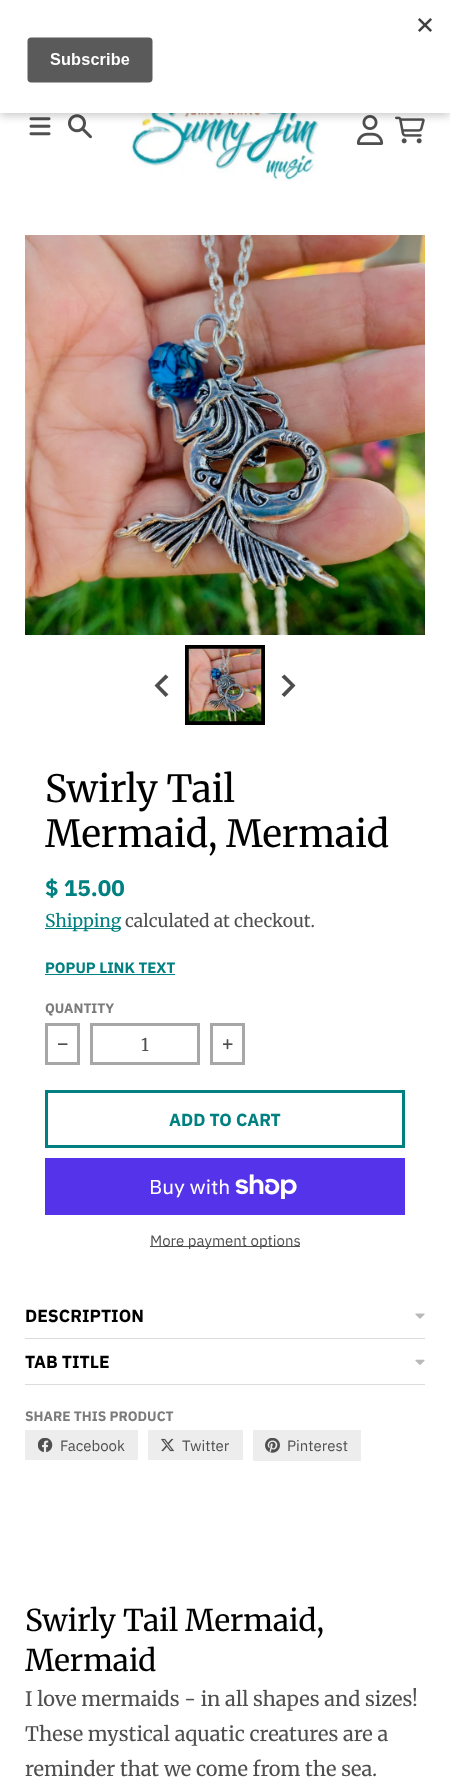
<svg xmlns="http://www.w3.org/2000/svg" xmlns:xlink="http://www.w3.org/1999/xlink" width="450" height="1782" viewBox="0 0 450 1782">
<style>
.cls-1{font:37.5px 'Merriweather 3';fill:#000000}
.cls-2{font:bold 22.5px IBM Plex Sans;fill:#008080}
.cls-3{font:17.5px 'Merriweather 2';fill:#008080}
.cls-4{font:17.5px 'Merriweather 2';fill:#4f4f4f}
.cls-5{font:bold 15px IBM Plex Sans;fill:#008080}
.cls-6{font:bold 13.75px IBM Plex Sans;fill:#7b7b7b}
.cls-7{font:bold 17.5px IBM Plex Sans;fill:#008080}
.cls-8{font:20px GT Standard;fill:#ffffff}
.cls-9{font:15px IBM Plex Sans;fill:#4f4f4f}
.cls-10{font:bold 17.5px IBM Plex Sans;fill:#000000}
.cls-11{font:30px Merriweather;fill:#000000}
.cls-12{font:20px 'Merriweather 2';fill:#4f4f4f}
</style>
<rect width="100%" height="100%" fill="#ffffff"/>
<image xlink:href="image1.png" x="29" y="117" width="22" height="19"/>
<image xlink:href="image2.png" x="68" y="114" width="24" height="25"/>
<image xlink:href="image3.png" x="128" y="113" width="192" height="68"/>
<image xlink:href="image4.png" x="356" y="115" width="28" height="30"/>
<image xlink:href="image5.png" x="395" y="116" width="30" height="28"/>
<rect fill="#000000" fill-opacity="0.2" filter="blur(4px)" x="0" y="4" width="450" height="112"/>
<rect fill="#ffffff" x="0" y="0" width="450" height="113"/>
<image xlink:href="image0.png" x="27" y="18" width="405" height="65"/>
<image xlink:href="image6.png" x="25" y="235" width="400" height="400"/>
<rect fill="none" stroke="#000000" stroke-width="4" x="187" y="647" width="76" height="76"/>
<image xlink:href="image7.png" x="188" y="648" width="74" height="74"/>
<path fill="#4d4d4d" d="M165.5 674.5L168.5 677L159.5 685.5L168.5 694.5L165.5 697L154.5 685.5Z"/>
<path fill="#4d4d4d" d="M284.5 674.5L281.5 677L290.5 685.5L281.5 694.5L284.5 697L295.5 685.5Z"/>
<rect fill="#008080" x="45" y="928" width="76" height="1"/>
<rect fill="#008080" x="45" y="974" width="130" height="1"/>
<rect fill="none" stroke="#a7a7a7" stroke-width="3" x="46.5" y="1024.5" width="32" height="39"/>
<image xlink:href="image8.png" x="58" y="1043" width="10" height="2"/>
<rect fill="none" stroke="#a7a7a7" stroke-width="3" x="91.5" y="1024.5" width="107" height="39"/>
<rect fill="none" stroke="#a7a7a7" stroke-width="3" x="211.5" y="1024.5" width="32" height="39"/>
<image xlink:href="image9.png" x="223" y="1039" width="10" height="11"/>
<rect fill="none" stroke="#008080" stroke-width="3" x="46.5" y="1091.5" width="357" height="55"/>
<rect fill="#5433eb" x="45" y="1158" width="360" height="57"/>
<image xlink:href="image10.png" x="235" y="1174" width="62" height="25"/>
<rect fill="#4f4f4f" x="150" y="1246" width="150" height="1"/>
<rect fill="#dcdcdc" x="25" y="1338" width="400" height="1"/>
<image xlink:href="image11.png" x="415" y="1313" width="10" height="6"/>
<rect fill="#dcdcdc" x="25" y="1384" width="400" height="1"/>
<image xlink:href="image12.png" x="415" y="1359" width="10" height="6"/>
<rect fill="#ededed" x="25" y="1430" width="113" height="30"/>
<image xlink:href="image13.png" x="38" y="1438" width="15" height="15"/>
<rect fill="#ededed" x="148" y="1430" width="95" height="30"/>
<image xlink:href="image14.png" x="161" y="1438" width="14" height="14"/>
<rect fill="#ededed" x="253" y="1430" width="108" height="31"/>
<image xlink:href="image15.png" x="265" y="1438" width="15" height="15"/>
<text class="cls-1"><tspan x="45" y="802">Swirly Tail</tspan><tspan x="45" y="847">Mermaid, Mermaid</tspan></text>
<text class="cls-2" x="45" y="896">$ 15.00</text>
<text class="cls-3" x="45" y="927">Shipping</text>
<text class="cls-4" x="125" y="927">calculated at checkout.</text>
<text class="cls-5" x="45" y="973">POPUP LINK TEXT</text>
<text class="cls-6" x="45" y="1013">QUANTITY</text>
<text class="cls-4" x="141" y="1051">1</text>
<text class="cls-7" x="169" y="1126">ADD TO CART</text>
<text class="cls-8" x="149" y="1194">Buy with</text>
<text class="cls-9" x="150" y="1246">More payment options</text>
<text class="cls-10" x="25" y="1322">DESCRIPTION</text>
<text class="cls-10" x="25" y="1368">TAB TITLE</text>
<text class="cls-6" x="25" y="1421">SHARE THIS PRODUCT</text>
<text class="cls-9" x="60" y="1451">Facebook</text>
<text class="cls-9" x="182" y="1451">Twitter</text>
<text class="cls-9" x="287" y="1451">Pinterest</text>
<text class="cls-11"><tspan x="25" y="1631">Swirly Tail Mermaid,</tspan><tspan x="25" y="1671">Mermaid</tspan></text>
<text class="cls-12"><tspan x="25" y="1706">I love mermaids - in all shapes and sizes!</tspan><tspan x="25" y="1741">These mystical aquatic creatures are a</tspan><tspan x="25" y="1776">reminder that we come from the sea.</tspan></text>
</svg>
